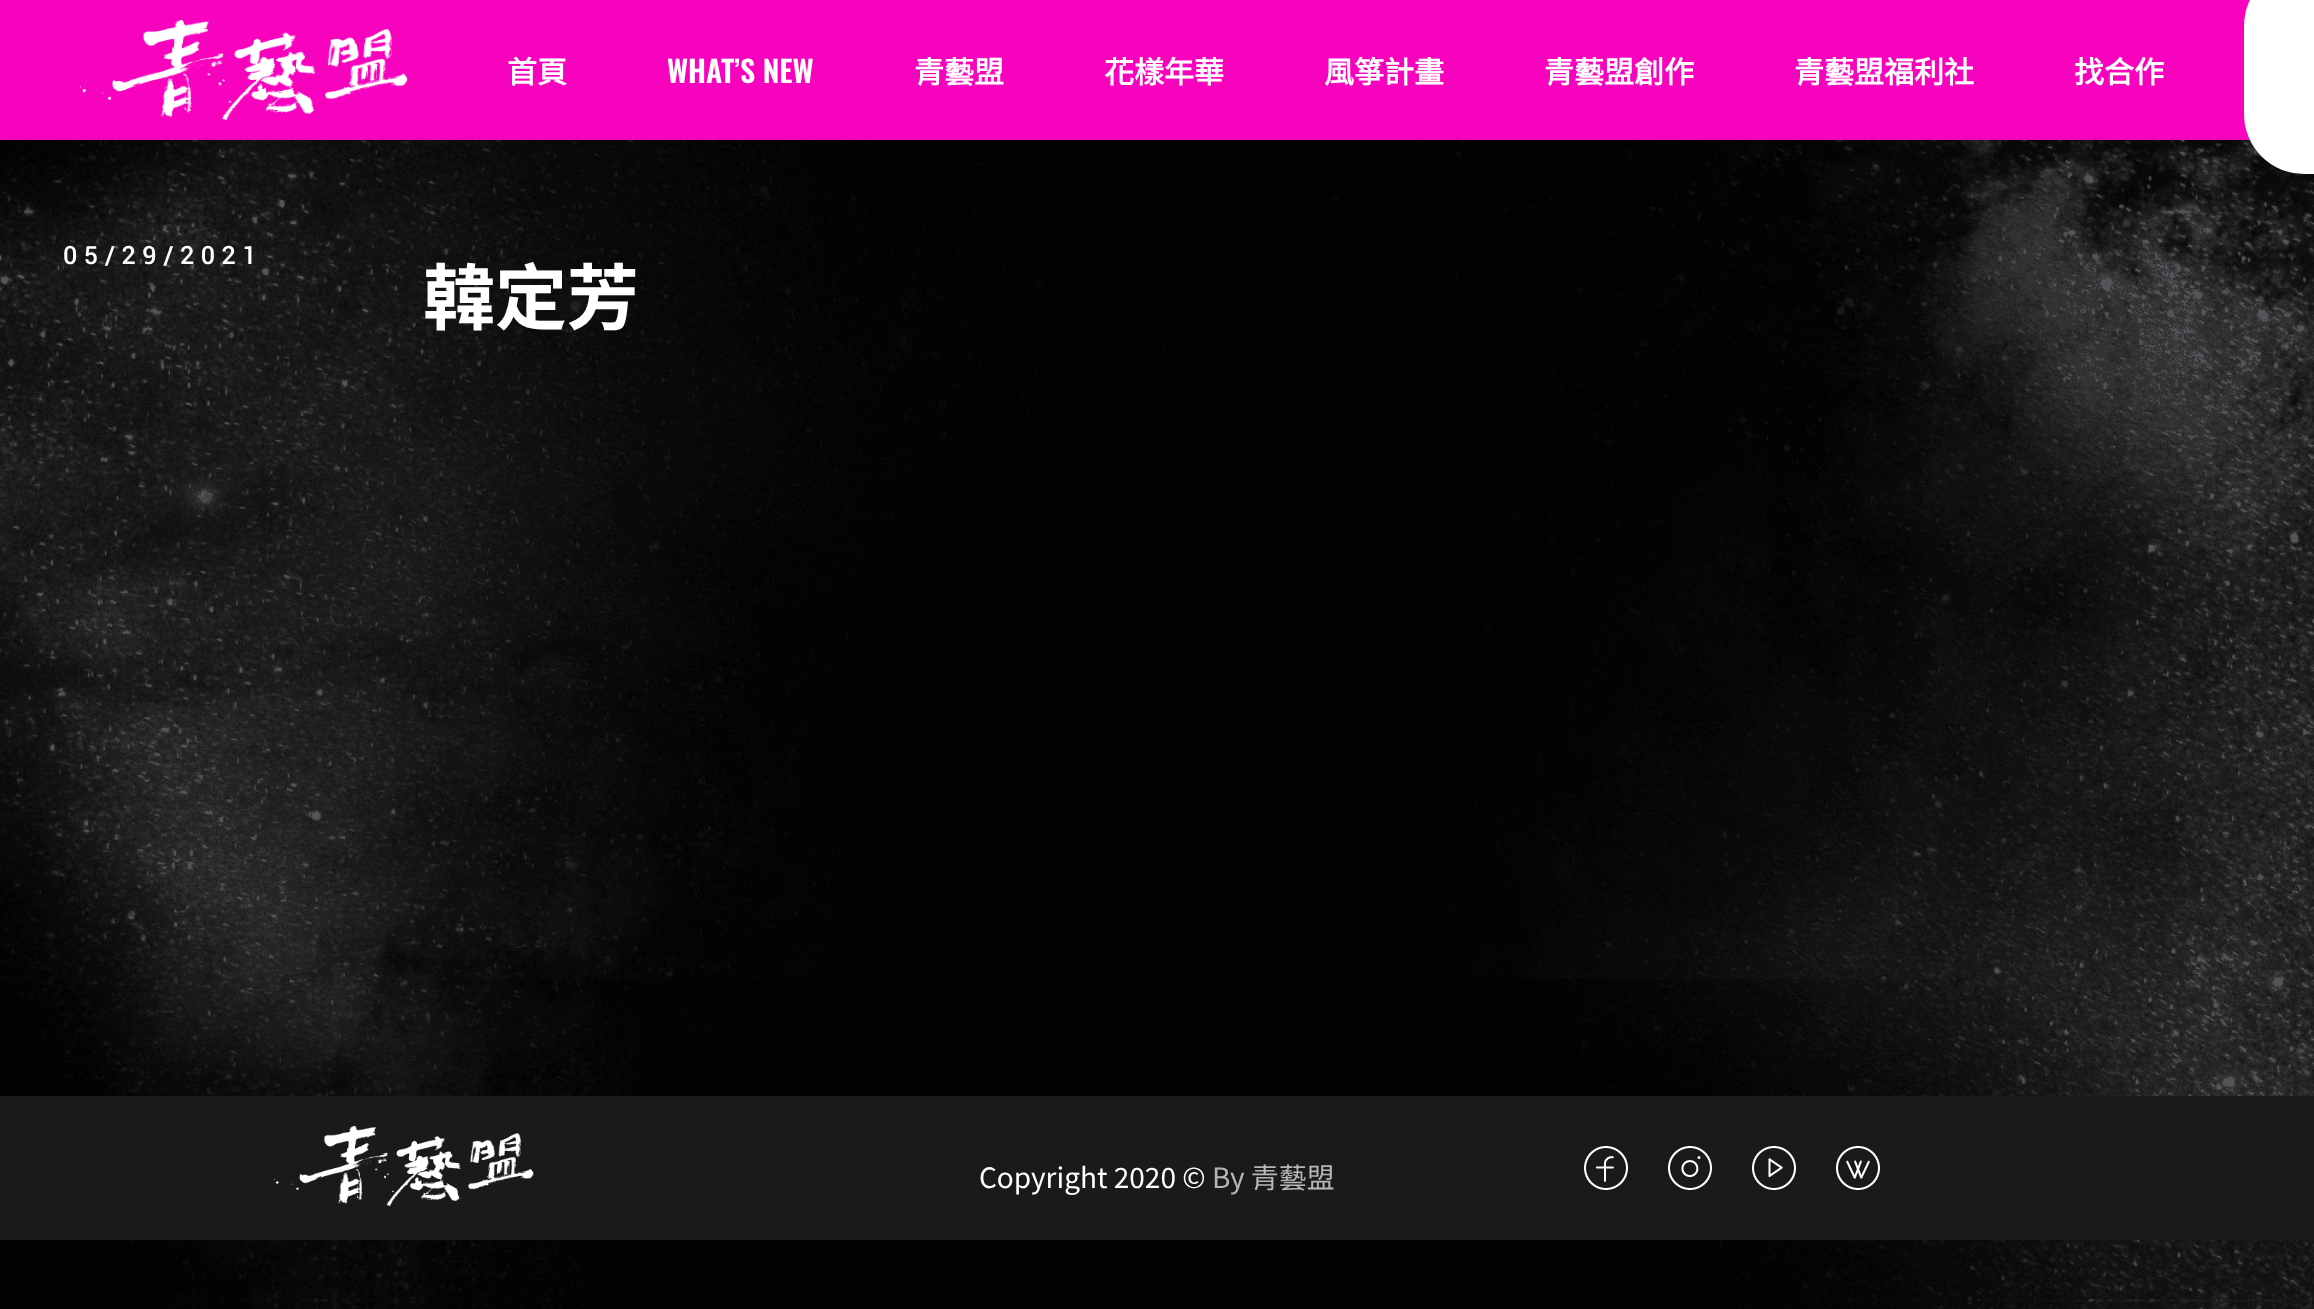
<svg xmlns="http://www.w3.org/2000/svg" xmlns:xlink="http://www.w3.org/1999/xlink" width="2314" height="1309" viewBox="0 0 2314 1309">
<style>
.cls-1{font:bold 30px Noto Sans CJK TC;fill:#ffffff}
.cls-2{font:600 30px Oswald;fill:#ffffff}
.cls-3{font:500 28px Yantramanav;letter-spacing:6.5px;fill:#ffffff}
.cls-4{font:bold 72px Noto Sans TC;fill:#ffffff}
.cls-5{font:28px Noto Sans TC;fill:#ffffff}
.cls-6{font:28px Noto Sans TC;fill:#b6b6b6}
</style>
<rect width="100%" height="100%" fill="#ffffff"/>
<image xlink:href="image0.png" x="0" y="140" width="2314" height="1169"/>
<rect fill="#f803bd" x="0" y="0" width="2250" height="140"/>
<image xlink:href="image1.png" x="80" y="20" width="328" height="100"/>
<rect fill="#ffffff" x="2244" y="-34" width="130" height="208" rx="60"/>
<rect fill="#1a1a1a" x="0" y="1096" width="2314" height="144"/>
<image xlink:href="image2.png" x="274" y="1126" width="260" height="80"/>
<image xlink:href="image3.png" x="1584" y="1146" width="44" height="44"/>
<image xlink:href="image4.png" x="1668" y="1146" width="44" height="44"/>
<image xlink:href="image5.png" x="1752" y="1146" width="44" height="44"/>
<image xlink:href="image6.png" x="1836" y="1146" width="44" height="44"/>
<text class="cls-1" x="507" y="83">首頁</text>
<text class="cls-2" x="667" y="83">WHAT’S NEW</text>
<text class="cls-1" x="914" y="83">青藝盟</text>
<text class="cls-1" x="1104" y="83">花樣年華</text>
<text class="cls-1" x="1324" y="83">風箏計畫</text>
<text class="cls-1" x="1544" y="83">青藝盟創作</text>
<text class="cls-1" x="1794" y="83">青藝盟福利社</text>
<text class="cls-1" x="2074" y="83">找合作</text>
<text class="cls-3" x="63" y="264">05/29/2021</text>
<text class="cls-4" x="423" y="324">韓定芳</text>
<text class="cls-5" x="979" y="1188">Copyright 2020 ©</text>
<text class="cls-6" x="1212" y="1188">By 青藝盟</text>
</svg>
